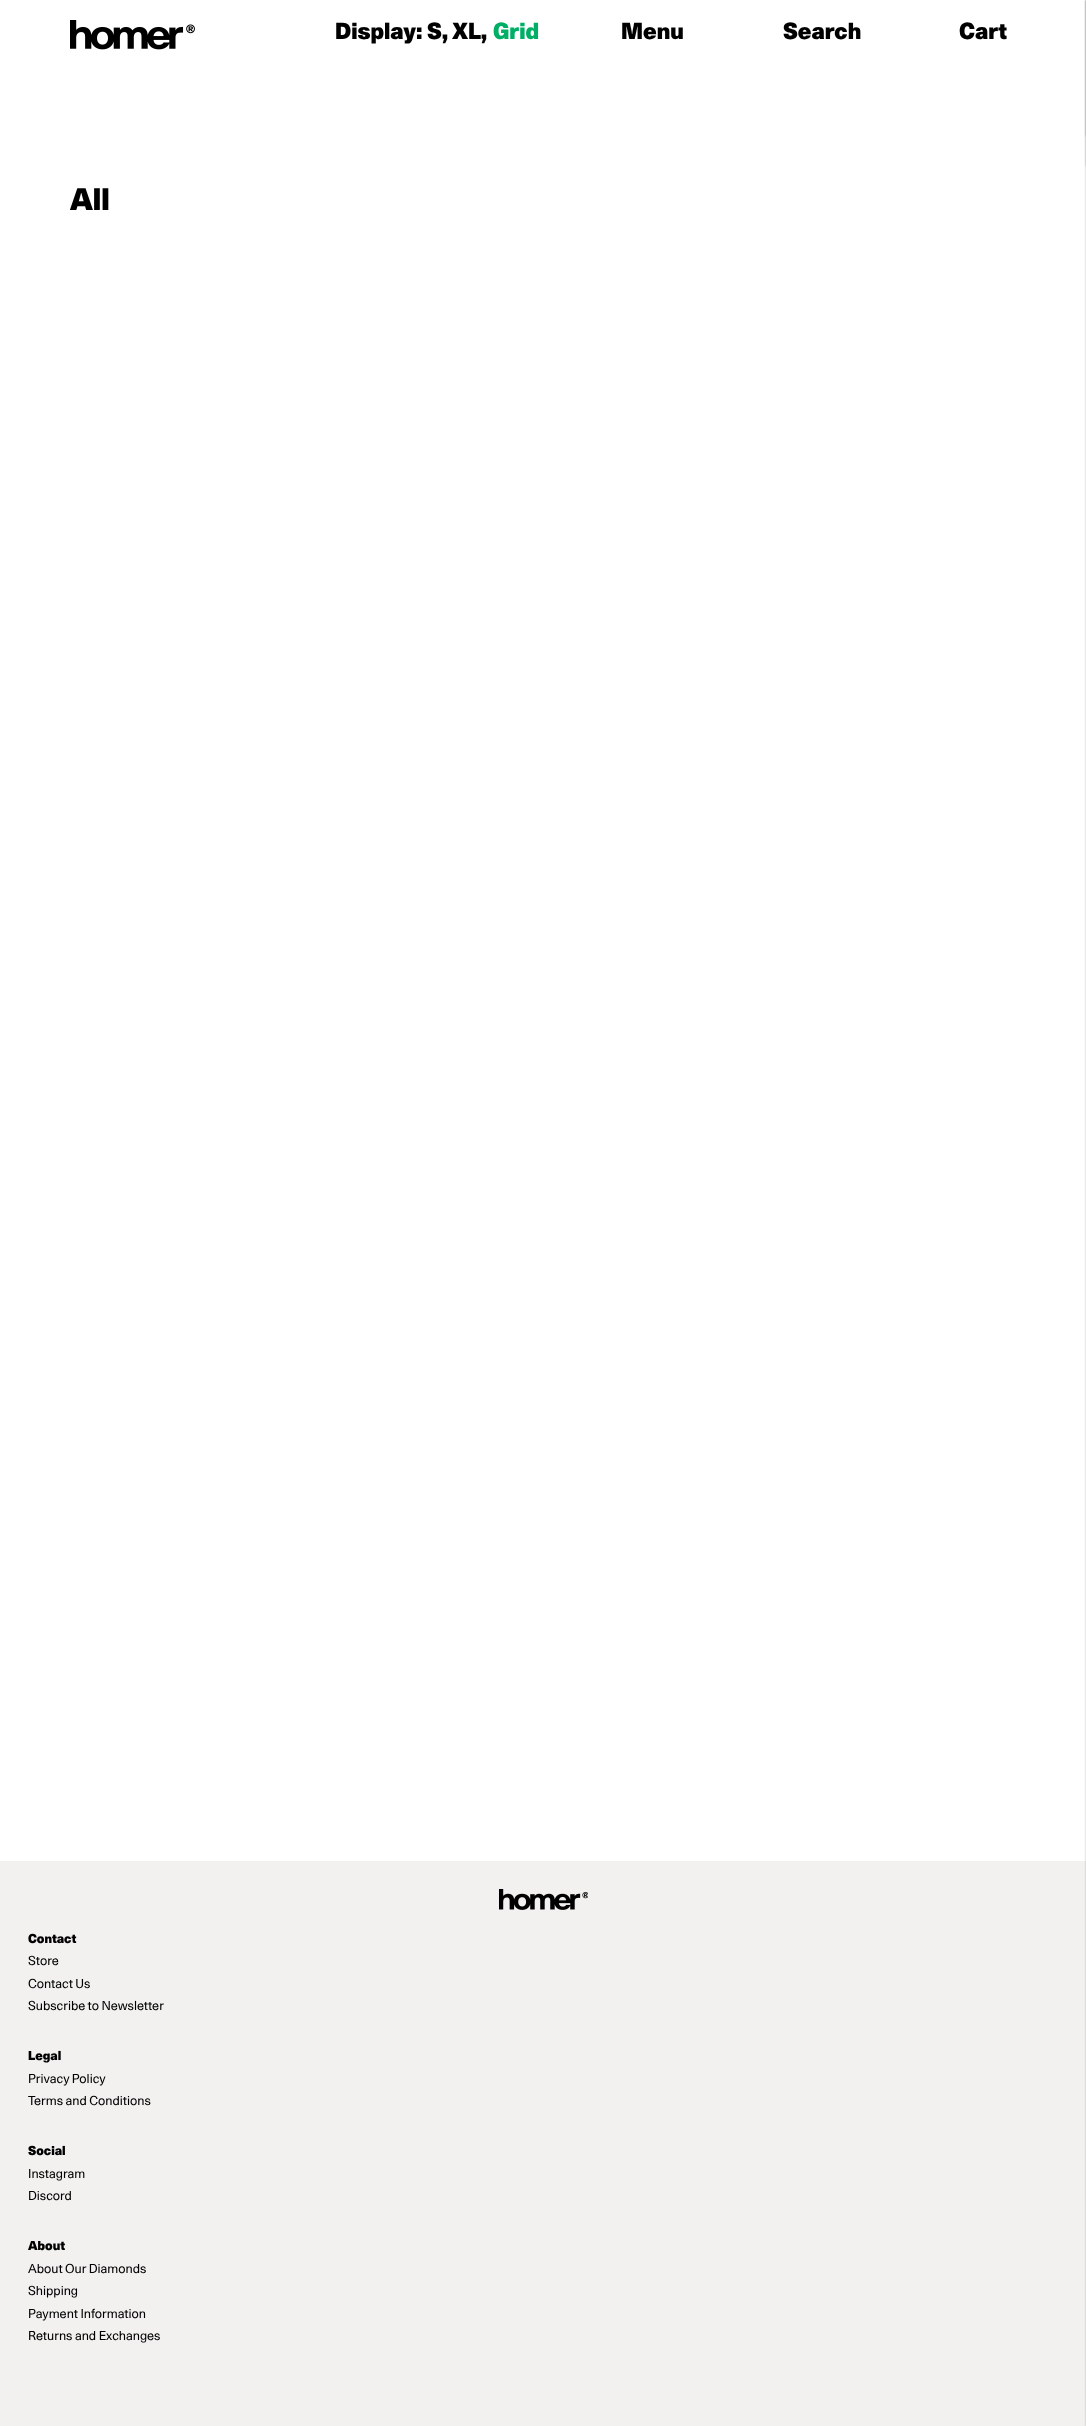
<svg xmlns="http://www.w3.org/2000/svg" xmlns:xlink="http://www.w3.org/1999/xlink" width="1086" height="2426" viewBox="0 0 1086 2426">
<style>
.cls-1{font:900 22.5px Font;fill:#000000}
.cls-2{font:900 22.5px Font;fill:#00af66}
.cls-3{font:900 30px Font;fill:#000000}
.cls-4{font:900 12.5px Font;fill:#000000}
.cls-5{font:12.5px Font;fill:#000000}
</style>
<rect width="100%" height="100%" fill="#ffffff"/>
<image xlink:href="image0.png" x="70" y="20" width="125" height="30"/>
<rect fill="#f2f1f0" x="0" y="1861" width="1086" height="565"/>
<rect fill="#000000" fill-opacity="0.25" filter="blur(1px)" x="1086" y="0" width="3" height="2426"/>
<rect fill="#000000" fill-opacity="0.25" filter="blur(1px)" x="1086" y="0" width="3" height="166"/>
<rect fill="#000000" fill-opacity="0.25" filter="blur(1px)" x="1086" y="0" width="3" height="136"/>
<image xlink:href="image1.png" x="499" y="1889" width="89" height="21"/>
<text class="cls-1" x="335" y="39">Display: S, XL,</text>
<text class="cls-2" x="493" y="39">Grid</text>
<text class="cls-1" x="621" y="39">Menu</text>
<text class="cls-1" x="783" y="39">Search</text>
<text class="cls-1" x="959" y="39">Cart</text>
<text class="cls-3" x="70" y="210">All</text>
<text class="cls-4" x="28" y="1943">Contact</text>
<text class="cls-5"><tspan x="28" y="1965">Store</tspan><tspan x="28" y="1988">Contact Us</tspan><tspan x="28" y="2010">Subscribe to Newsletter</tspan></text>
<text class="cls-4" x="28" y="2060">Legal</text>
<text class="cls-5"><tspan x="28" y="2083">Privacy Policy</tspan><tspan x="28" y="2105">Terms and Conditions</tspan></text>
<text class="cls-4" x="28" y="2155">Social</text>
<text class="cls-5"><tspan x="28" y="2178">Instagram</tspan><tspan x="28" y="2200">Discord</tspan></text>
<text class="cls-4" x="28" y="2250">About</text>
<text class="cls-5"><tspan x="28" y="2273">About Our Diamonds</tspan><tspan x="28" y="2295">Shipping</tspan><tspan x="28" y="2318">Payment Information</tspan><tspan x="28" y="2340">Returns and Exchanges</tspan></text>
</svg>
